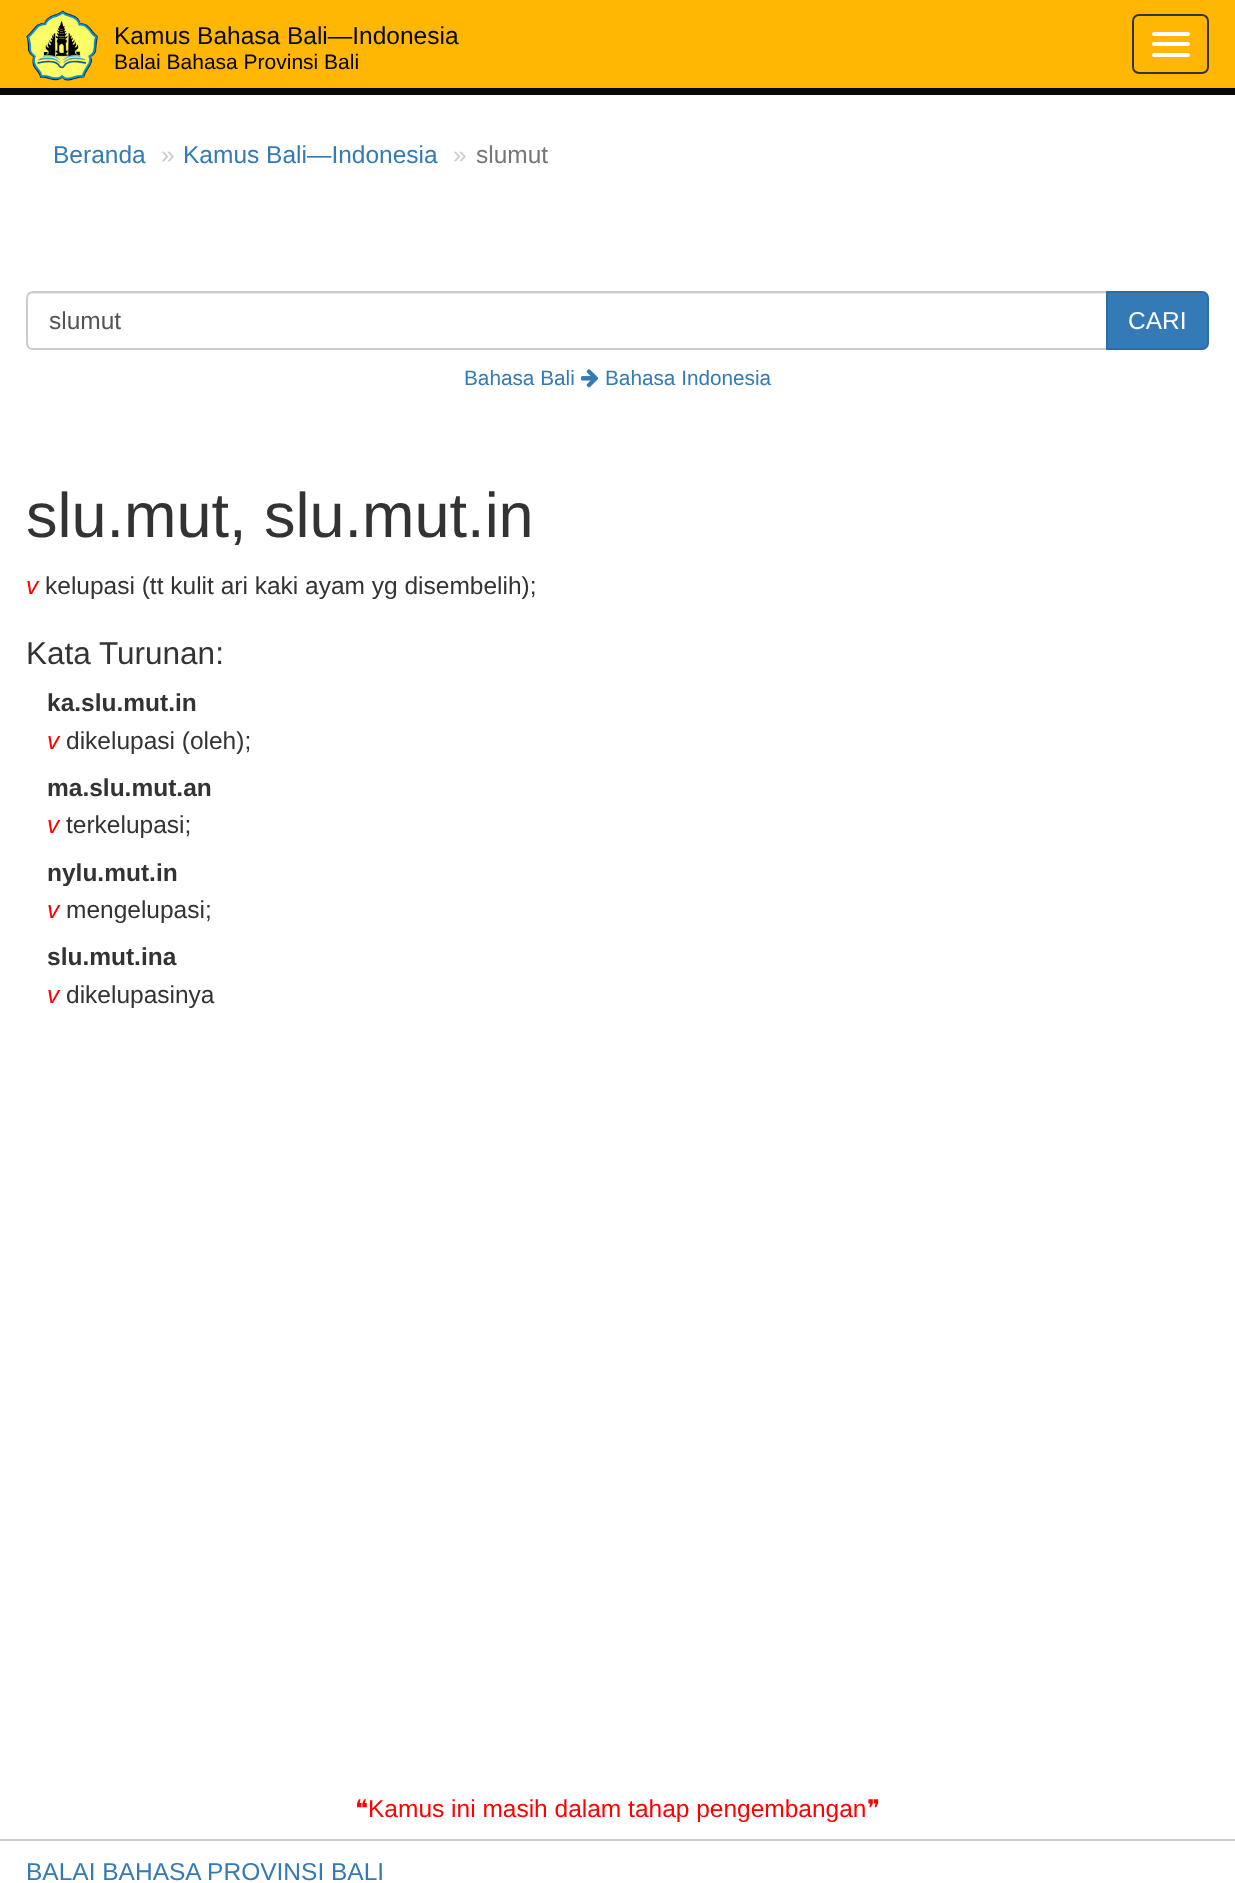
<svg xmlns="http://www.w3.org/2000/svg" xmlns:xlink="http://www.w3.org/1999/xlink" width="1235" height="1883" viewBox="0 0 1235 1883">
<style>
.cls-1{font:24.5px Liberation Sans;fill:#080808}
.cls-2{font:21px Liberation Sans;fill:#000000}
.cls-3{font:24.5px Liberation Sans;fill:#337ab7}
.cls-4{font:24.5px Liberation Sans;fill:#cccccc}
.cls-5{font:24.5px Liberation Sans;fill:#777777}
.cls-6{font:24.5px Liberation Sans;fill:#555555}
.cls-7{font:24.5px Liberation Sans;fill:#ffffff}
.cls-8{font:20.75px Liberation Sans;fill:#337ab7}
.cls-9{font:63px Liberation Sans;fill:#333333}
.cls-10{font:italic 24.5px Liberation Sans;fill:#ff0000}
.cls-11{font:24.5px Liberation Sans;fill:#333333}
.cls-12{font:31.5px Liberation Sans;fill:#333333}
.cls-13{font:bold 24.5px Liberation Sans;fill:#333333}
.cls-14{font:24.5px DejaVu Sans;fill:#ff0000}
.cls-15{font:24.5px Liberation Sans;fill:#ff0000}
</style>
<rect width="100%" height="100%" fill="#ffffff"/>
<rect fill="#ffb703" x="0" y="0" width="1235" height="88"/>
<rect fill="#080808" x="0" y="88" width="1235" height="7"/>
<image xlink:href="image0.png" x="26" y="10" width="72" height="71"/>
<rect fill="none" stroke="#333333" stroke-width="2" x="1133" y="15" width="75" height="58" rx="6"/>
<rect fill="#ffffff" x="1152" y="32" width="38" height="4" rx="2"/>
<rect fill="#ffffff" x="1152" y="42" width="38" height="4" rx="2"/>
<rect fill="#ffffff" x="1152" y="53" width="38" height="4" rx="2"/>
<path fill="#ececec" d="M33 294H1106V292H33C30 292 28 294 28 297V299C28 296 30 294 33 294Z"/>
<path fill="none" stroke="#cccccc" stroke-width="2" d="M33 292H1107V349H33C29.5 349 27 346.5 27 343V298C27 294.5 29.5 292 33 292Z"/>
<path fill="#337ab7" stroke="#2e6da4" stroke-width="2" d="M1107 292H1202C1205.5 292 1208 294.5 1208 298V343C1208 346.5 1205.5 349 1202 349H1107Z"/>
<image xlink:href="image1.png" x="581" y="369" width="18" height="19"/>
<rect fill="#cccccc" x="0" y="1839" width="1235" height="2"/>
<text class="cls-1" x="114" y="44">Kamus Bahasa Bali—Indonesia</text>
<text class="cls-2" x="114" y="69">Balai Bahasa Provinsi Bali</text>
<text class="cls-3" x="53" y="163">Beranda</text>
<text class="cls-4" x="161" y="163">»</text>
<text class="cls-3" x="183" y="163">Kamus Bali—Indonesia</text>
<text class="cls-4" x="453" y="163">»</text>
<text class="cls-5" x="476" y="163">slumut</text>
<text class="cls-6" x="49" y="329">slumut</text>
<text class="cls-7" x="1128" y="329">CARI</text>
<text class="cls-8" x="464" y="385">Bahasa Bali</text>
<text class="cls-8" x="605" y="385">Bahasa Indonesia</text>
<text class="cls-9" x="26" y="537">slu.mut, slu.mut.in</text>
<text class="cls-10" x="26" y="594">v</text>
<text class="cls-11" x="45" y="594">kelupasi (tt kulit ari kaki ayam yg disembelih);</text>
<text class="cls-12" x="26" y="664">Kata Turunan:</text>
<text class="cls-13" x="47" y="711">ka.slu.mut.in</text>
<text class="cls-10" x="47" y="749">v</text>
<text class="cls-11" x="66" y="749">dikelupasi (oleh);</text>
<text class="cls-13" x="47" y="796">ma.slu.mut.an</text>
<text class="cls-10" x="47" y="833">v</text>
<text class="cls-11" x="66" y="833">terkelupasi;</text>
<text class="cls-13" x="47" y="881">nylu.mut.in</text>
<text class="cls-10" x="47" y="918">v</text>
<text class="cls-11" x="66" y="918">mengelupasi;</text>
<text class="cls-13" x="47" y="965">slu.mut.ina</text>
<text class="cls-10" x="47" y="1003">v</text>
<text class="cls-11" x="66" y="1003">dikelupasinya</text>
<text class="cls-14" x="355" y="1817">❝</text>
<text class="cls-15" x="368" y="1817">Kamus ini masih dalam tahap pengembangan</text>
<text class="cls-14" x="867" y="1817">❞</text>
<text class="cls-3" x="26" y="1880">BALAI BAHASA PROVINSI BALI</text>
</svg>
